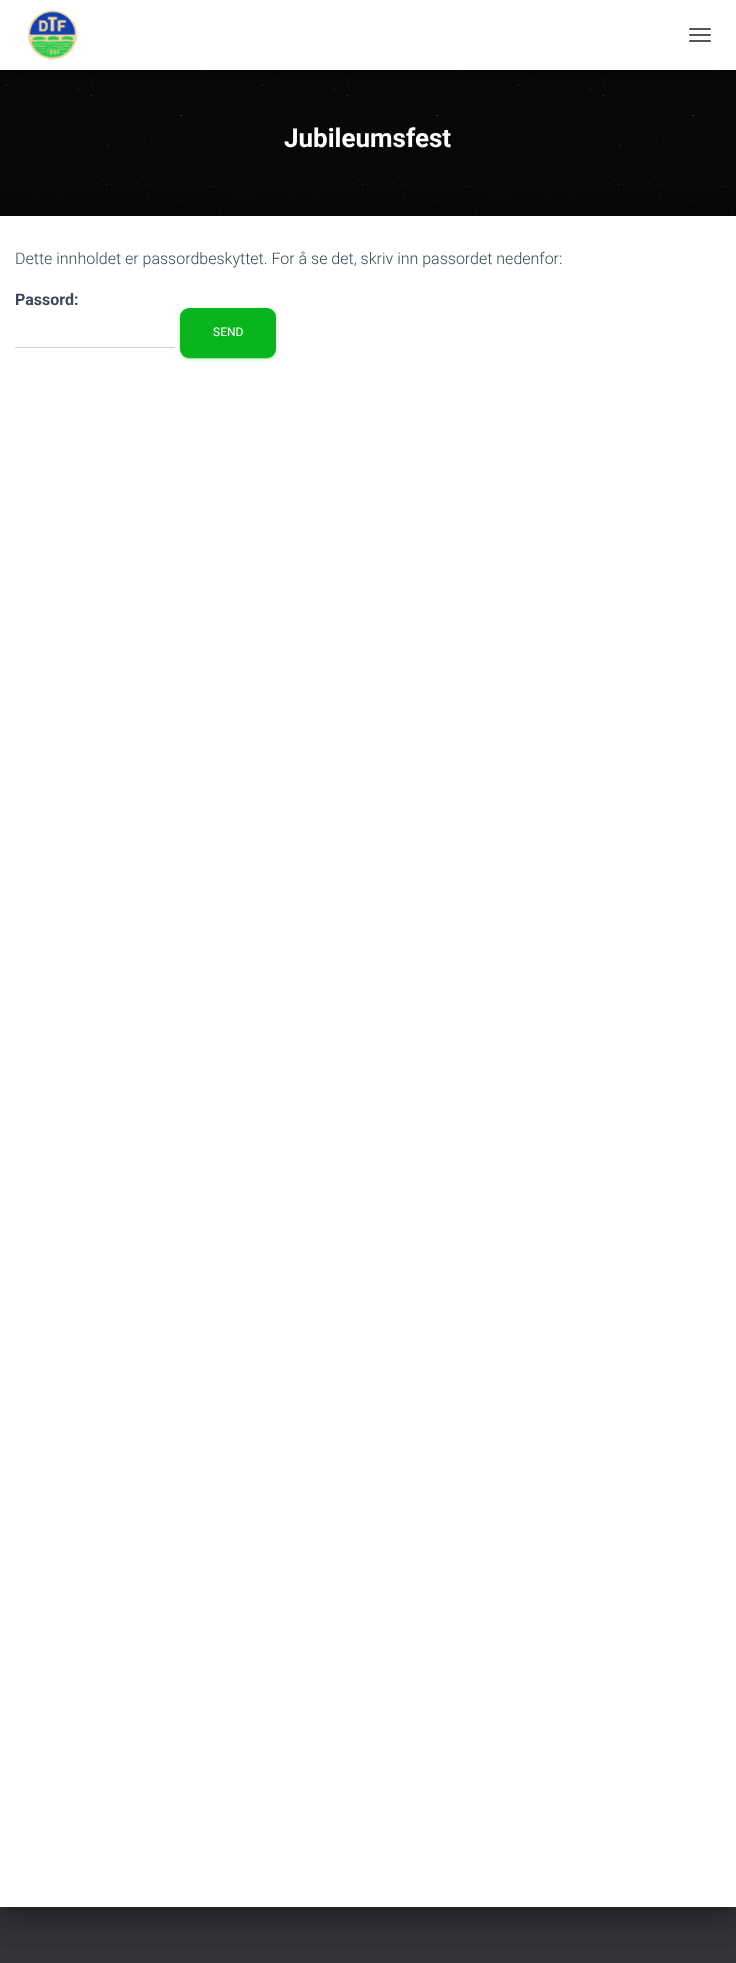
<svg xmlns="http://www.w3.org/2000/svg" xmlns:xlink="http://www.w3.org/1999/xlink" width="736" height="1963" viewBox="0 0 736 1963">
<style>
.cls-1{font:bold 26px Roboto;fill:#ffffff}
.cls-2{font:300 16px Roboto;fill:#3c4858}
.cls-3{font:bold 16px Roboto;fill:#3c4858}
.cls-4{font:12px Roboto;fill:#ffffff}
</style>
<rect width="100%" height="100%" fill="#ffffff"/>
<image xlink:href="image0.png" x="0" y="70" width="736" height="146"/>
<rect fill="#000000" fill-opacity="0.5" x="0" y="70" width="736" height="146"/>
<rect fill="#000000" fill-opacity="0.1" filter="blur(2.5px)" x="2" y="6" width="732" height="66"/>
<rect fill="#000000" fill-opacity="0.12" filter="blur(5px)" x="0" y="1" width="736" height="70"/>
<rect fill="#ffffff" x="0" y="0" width="736" height="70"/>
<image xlink:href="image1.png" x="27" y="10" width="51" height="50"/>
<rect fill="#555555" x="689" y="28" width="22" height="2" rx="1"/>
<rect fill="#555555" x="689" y="34" width="22" height="2" rx="1"/>
<rect fill="#555555" x="689" y="40" width="22" height="2" rx="1"/>
<rect fill="#323437" x="0" y="1907" width="736" height="56"/>
<rect fill="#000000" fill-opacity="0.2" filter="blur(5px)" x="5" y="229" width="726" height="1681"/>
<rect fill="#000000" fill-opacity="0.12" filter="blur(15px)" x="-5" y="217" width="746" height="1701"/>
<rect fill="#000000" fill-opacity="0.14" filter="blur(12px)" x="-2" y="230" width="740" height="1695"/>
<rect fill="#ffffff" x="0" y="216" width="736" height="1691"/>
<rect fill="#d2d2d2" x="15" y="347" width="160" height="1"/>
<rect fill="#09b51d" fill-opacity="0.12" filter="blur(2.5px)" x="180" y="309" width="96" height="50" rx="9"/>
<rect fill="#09b51d" fill-opacity="0.2" filter="blur(0.5px)" x="182" y="313" width="92" height="46" rx="7"/>
<rect fill="#09b51d" fill-opacity="0.14" filter="blur(1px)" x="180" y="310" width="96" height="50" rx="9"/>
<rect fill="#09b51d" x="180" y="308" width="96" height="50" rx="9"/>
<text class="cls-1" x="284" y="147">Jubileumsfest</text>
<text class="cls-2" x="15" y="264">Dette innholdet er passordbeskyttet. For å se det, skriv inn passordet nedenfor:</text>
<text class="cls-3" x="15" y="305">Passord:</text>
<text class="cls-4" x="213" y="336">SEND</text>
</svg>
